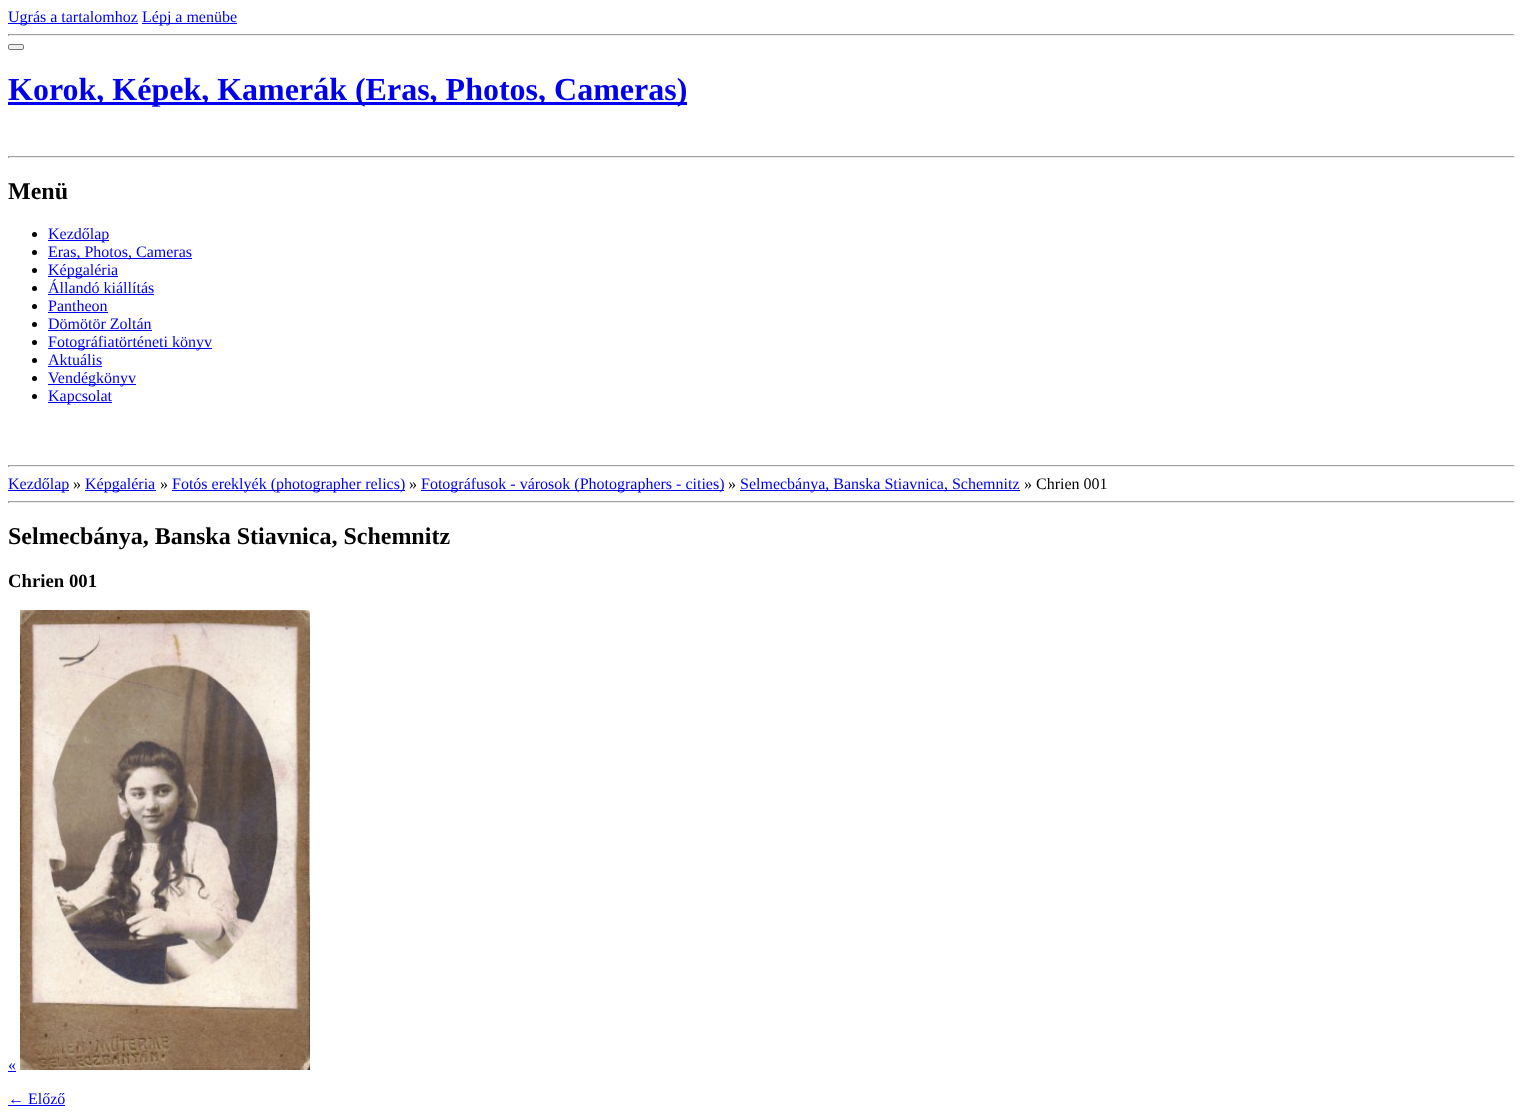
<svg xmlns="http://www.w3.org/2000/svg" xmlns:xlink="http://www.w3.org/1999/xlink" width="1523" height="1117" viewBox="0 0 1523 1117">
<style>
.cls-1{font:16px Liberation Serif;fill:#0000ee}
.cls-2{font:bold 32px Liberation Serif;fill:#0000ee}
.cls-3{font:bold 24px Liberation Serif;fill:#000000}
.cls-4{font:16px Liberation Serif;fill:#000000}
.cls-5{font:bold 18.75px Liberation Serif;fill:#000000}
</style>
<rect width="100%" height="100%" fill="#ffffff"/>
<rect fill="#0000ee" x="8" y="23" width="130" height="1"/>
<rect fill="#0000ee" x="142" y="23" width="95" height="1"/>
<rect fill="#9f9f9f" x="8" y="34" width="1507" height="1"/>
<rect fill="#eeeeee" x="1514" y="34" width="1" height="2"/>
<rect fill="#eeeeee" x="8" y="35" width="1507" height="1"/>
<rect fill="#9f9f9f" x="8" y="34" width="1" height="2"/>
<rect fill="#efefef" stroke="#767676" x="8.5" y="44.5" width="15" height="5" rx="1.5"/>
<rect fill="#0000ee" x="8" y="102" width="679" height="3"/>
<rect fill="#9f9f9f" x="8" y="156" width="1507" height="1"/>
<rect fill="#eeeeee" x="1514" y="156" width="1" height="2"/>
<rect fill="#eeeeee" x="8" y="157" width="1507" height="1"/>
<rect fill="#9f9f9f" x="8" y="156" width="1" height="2"/>
<circle fill="#000000" cx="34.5" cy="234.5" r="2.5"/>
<rect fill="#0000ee" x="48" y="240" width="61" height="1"/>
<circle fill="#000000" cx="34.5" cy="252.5" r="2.5"/>
<rect fill="#0000ee" x="48" y="258" width="144" height="1"/>
<circle fill="#000000" cx="34.5" cy="270.5" r="2.5"/>
<rect fill="#0000ee" x="48" y="276" width="70" height="1"/>
<circle fill="#000000" cx="34.5" cy="288.5" r="2.5"/>
<rect fill="#0000ee" x="48" y="294" width="106" height="1"/>
<circle fill="#000000" cx="34.5" cy="306.5" r="2.5"/>
<rect fill="#0000ee" x="48" y="312" width="60" height="1"/>
<circle fill="#000000" cx="34.5" cy="324.5" r="2.5"/>
<rect fill="#0000ee" x="48" y="330" width="104" height="1"/>
<circle fill="#000000" cx="34.5" cy="342.5" r="2.5"/>
<rect fill="#0000ee" x="48" y="348" width="164" height="1"/>
<circle fill="#000000" cx="34.5" cy="360.5" r="2.5"/>
<rect fill="#0000ee" x="48" y="366" width="54" height="1"/>
<circle fill="#000000" cx="34.5" cy="378.5" r="2.5"/>
<rect fill="#0000ee" x="48" y="384" width="88" height="1"/>
<circle fill="#000000" cx="34.5" cy="396.5" r="2.5"/>
<rect fill="#0000ee" x="48" y="402" width="64" height="1"/>
<rect fill="#9f9f9f" x="8" y="465" width="1507" height="1"/>
<rect fill="#eeeeee" x="1514" y="465" width="1" height="2"/>
<rect fill="#eeeeee" x="8" y="466" width="1507" height="1"/>
<rect fill="#9f9f9f" x="8" y="465" width="1" height="2"/>
<rect fill="#0000ee" x="8" y="490" width="61" height="1"/>
<rect fill="#0000ee" x="85" y="490" width="71" height="1"/>
<rect fill="#0000ee" x="172" y="490" width="233" height="1"/>
<rect fill="#0000ee" x="421" y="490" width="303" height="1"/>
<rect fill="#0000ee" x="740" y="490" width="280" height="1"/>
<rect fill="#9f9f9f" x="8" y="501" width="1507" height="1"/>
<rect fill="#eeeeee" x="1514" y="501" width="1" height="2"/>
<rect fill="#eeeeee" x="8" y="502" width="1507" height="1"/>
<rect fill="#9f9f9f" x="8" y="501" width="1" height="2"/>
<rect fill="#0000ee" x="8" y="1071" width="8" height="1"/>
<image xlink:href="image0.png" x="20" y="610" width="290" height="460"/>
<rect fill="#0000ee" x="8" y="1105" width="57" height="1"/>
<text class="cls-1" x="8" y="22">Ugrás a tartalomhoz</text>
<text class="cls-1" x="142" y="22">Lépj a menübe</text>
<text class="cls-2" x="8" y="100">Korok, Képek, Kamerák (Eras, Photos, Cameras)</text>
<text class="cls-3" x="8" y="199">Menü</text>
<text class="cls-1"><tspan x="48" y="239">Kezdőlap</tspan><tspan x="48" y="257">Eras, Photos, Cameras</tspan><tspan x="48" y="275">Képgaléria</tspan><tspan x="48" y="293">Állandó kiállítás</tspan><tspan x="48" y="311">Pantheon</tspan><tspan x="48" y="329">Dömötör Zoltán</tspan><tspan x="48" y="347">Fotográfiatörténeti könyv</tspan><tspan x="48" y="365">Aktuális</tspan><tspan x="48" y="383">Vendégkönyv</tspan><tspan x="48" y="401">Kapcsolat</tspan></text>
<text class="cls-1" x="8" y="489">Kezdőlap</text>
<text class="cls-4" x="73" y="489">»</text>
<text class="cls-1" x="85" y="489">Képgaléria</text>
<text class="cls-4" x="160" y="489">»</text>
<text class="cls-1" x="172" y="489">Fotós ereklyék (photographer relics)</text>
<text class="cls-4" x="409" y="489">»</text>
<text class="cls-1" x="421" y="489">Fotográfusok - városok (Photographers - cities)</text>
<text class="cls-4" x="728" y="489">»</text>
<text class="cls-1" x="740" y="489">Selmecbánya, Banska Stiavnica, Schemnitz</text>
<text class="cls-4" x="1024" y="489">» Chrien 001</text>
<text class="cls-3" x="8" y="544">Selmecbánya, Banska Stiavnica, Schemnitz</text>
<text class="cls-5" x="8" y="587">Chrien 001</text>
<text class="cls-1" x="8" y="1070">«</text>
<text class="cls-1" x="8" y="1104">← Előző</text>
</svg>
